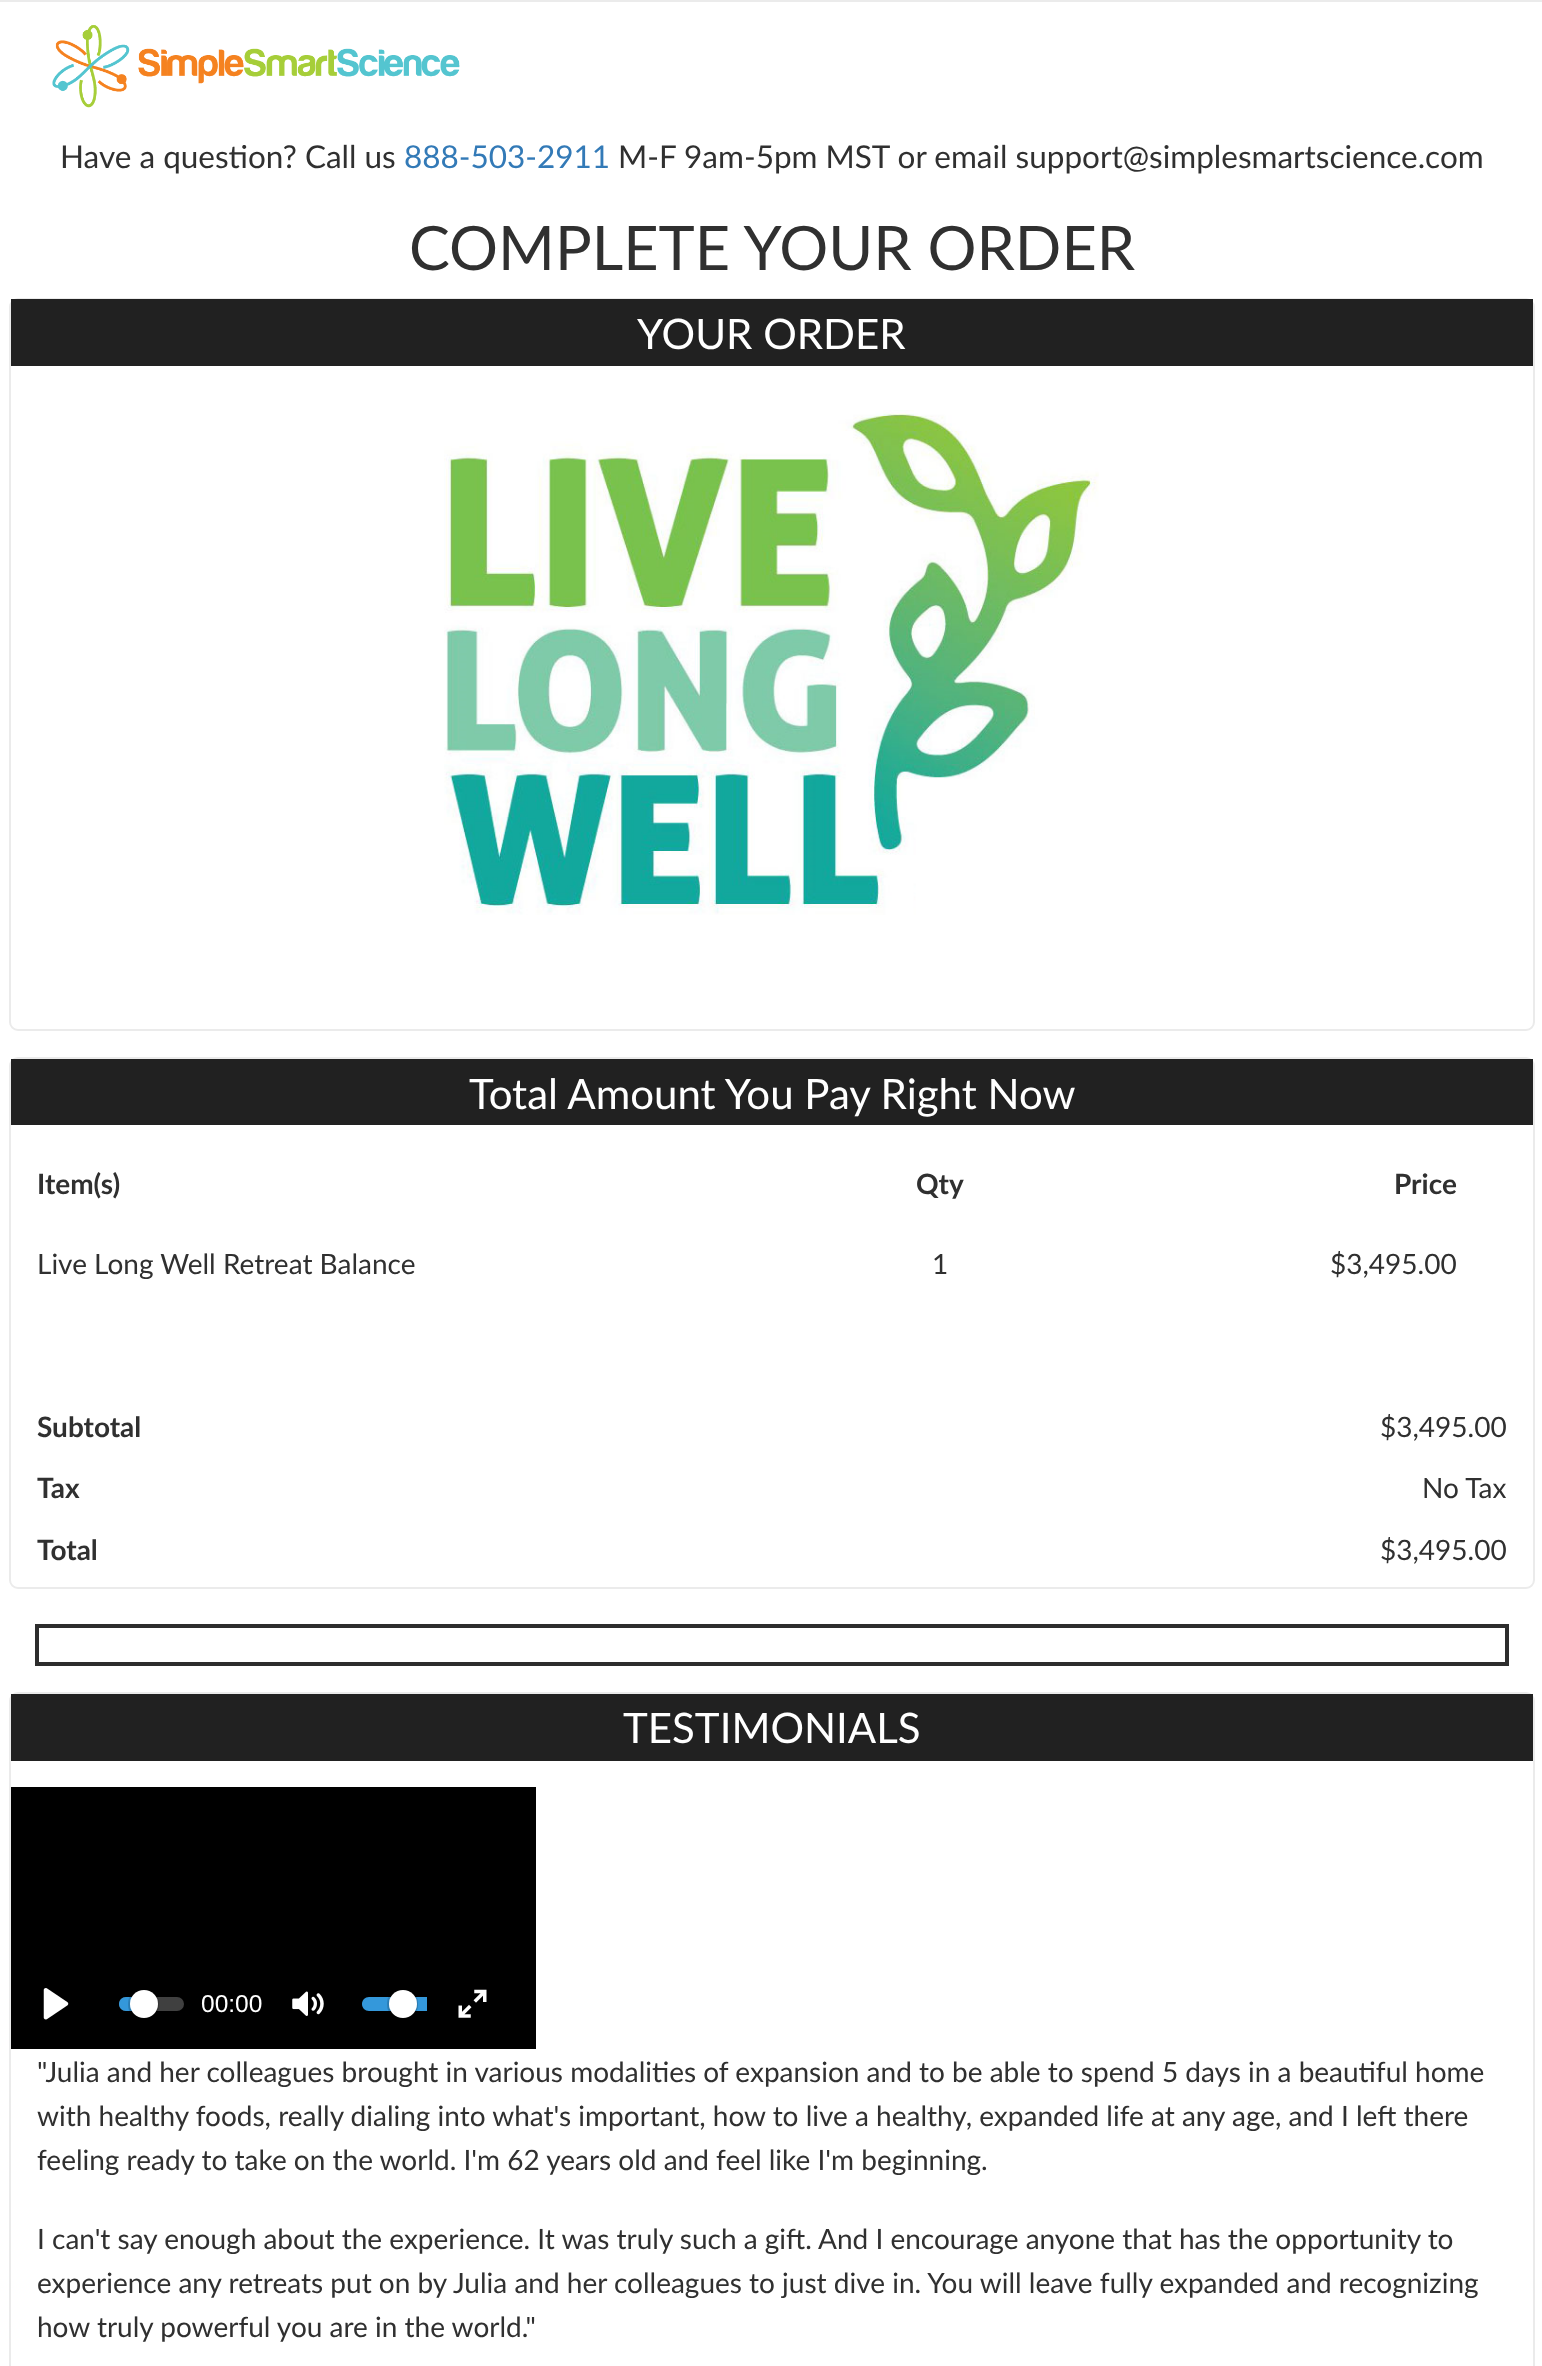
<svg xmlns="http://www.w3.org/2000/svg" xmlns:xlink="http://www.w3.org/1999/xlink" width="1542" height="2366" viewBox="0 0 1542 2366">
<style>
.cls-1{font:31.5px Lato;fill:#303030}
.cls-2{font:31.5px Lato;fill:#337ab7}
.cls-3{font:61.25px Lato;fill:#303030}
.cls-4{font:42px Lato;fill:#ffffff}
.cls-5{font:bold 28px Lato;fill:#303030}
.cls-6{font:28px Lato;fill:#303030}
.cls-7{font:24.5px Liberation Sans;fill:#ffffff}
</style>
<rect width="100%" height="100%" fill="#ffffff"/>
<rect fill="#ebebeb" x="0" y="0" width="1542" height="2"/>
<image xlink:href="image0.png" x="52" y="25" width="408" height="83"/>
<rect fill="none" stroke="#ebebeb" stroke-width="2" x="10" y="299" width="1524" height="731" rx="8"/>
<rect fill="#212121" x="11" y="299" width="1522" height="67"/>
<image xlink:href="image1.png" x="444" y="410" width="655" height="505"/>
<rect fill="none" stroke="#ebebeb" stroke-width="2" x="10" y="1058" width="1524" height="530" rx="8"/>
<rect fill="#212121" x="11" y="1059" width="1522" height="66"/>
<rect fill="none" stroke="#2d2d2d" stroke-width="4" x="37" y="1626" width="1470" height="38"/>
<rect fill="none" stroke="#ebebeb" stroke-width="2" x="10" y="1693" width="1524" height="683" rx="8"/>
<rect fill="#212121" x="11" y="1694" width="1522" height="67"/>
<rect fill="#000000" x="11" y="1787" width="525" height="262"/>
<image xlink:href="image2.png" x="43" y="1988" width="26" height="32"/>
<rect fill="#404040" x="119" y="1997" width="65" height="14" rx="7"/>
<path fill="#3498db" d="M126 1997H133V2011H126C122 2011 119 2008 119 2004C119 2000 122 1997 126 1997Z"/>
<rect fill="none" stroke="#000000" stroke-opacity="0.15" stroke-width="2" x="129" y="1989" width="29" height="30" rx="14.5"/>
<rect fill="#000000" fill-opacity="0.15" filter="blur(1px)" x="130" y="1992" width="28" height="28" rx="14"/>
<circle fill="#ffffff" cx="144" cy="2004" r="14"/>
<image xlink:href="image3.png" x="292" y="1991" width="32" height="25"/>
<path fill="#3498db" d="M369 1997H427V2011H369C365 2011 362 2008 362 2004C362 2000 365 1997 369 1997Z"/>
<rect fill="none" stroke="#000000" stroke-opacity="0.15" stroke-width="2" x="388" y="1989" width="29" height="30" rx="14.5"/>
<rect fill="#000000" fill-opacity="0.15" filter="blur(1px)" x="389" y="1992" width="28" height="28" rx="14"/>
<circle fill="#ffffff" cx="403" cy="2004" r="14"/>
<image xlink:href="image4.png" x="458" y="1989" width="29" height="29"/>
<text class="cls-1" x="60" y="168">Have a question? Call us</text>
<text class="cls-2" x="404" y="168">888-503-2911</text>
<text class="cls-1" x="618" y="168">M-F 9am-5pm MST or email support@simplesmartscience.com</text>
<text class="cls-3" x="409" y="270">COMPLETE YOUR ORDER</text>
<text class="cls-4" x="637" y="349">YOUR ORDER</text>
<text class="cls-4" x="469" y="1109">Total Amount You Pay Right Now</text>
<text class="cls-5" x="37" y="1194">Item(s)</text>
<text class="cls-5" x="916" y="1194">Qty</text>
<text class="cls-5" x="1394" y="1194">Price</text>
<text class="cls-6" x="37" y="1274">Live Long Well Retreat Balance</text>
<text class="cls-6" x="932" y="1274">1</text>
<text class="cls-6" x="1330" y="1274">$3,495.00</text>
<text class="cls-5" x="37" y="1437">Subtotal</text>
<text class="cls-6" x="1380" y="1437">$3,495.00</text>
<text class="cls-5" x="37" y="1498">Tax</text>
<text class="cls-6" x="1422" y="1498">No Tax</text>
<text class="cls-5" x="37" y="1560">Total</text>
<text class="cls-6" x="1380" y="1560">$3,495.00</text>
<text class="cls-4" x="623" y="1743">TESTIMONIALS</text>
<text class="cls-7" x="201" y="2012">00:00</text>
<text class="cls-6"><tspan x="37" y="2082">"Julia and her colleagues brought in various modalities of expansion and to be able to spend 5 days in a beautiful home</tspan><tspan x="37" y="2126">with healthy foods, really dialing into what's important, how to live a healthy, expanded life at any age, and I left there</tspan><tspan x="37" y="2170">feeling ready to take on the world. I'm 62 years old and feel like I'm beginning.</tspan></text>
<text class="cls-6"><tspan x="37" y="2249">I can't say enough about the experience. It was truly such a gift. And I encourage anyone that has the opportunity to</tspan><tspan x="37" y="2293">experience any retreats put on by Julia and her colleagues to just dive in. You will leave fully expanded and recognizing</tspan><tspan x="37" y="2337">how truly powerful you are in the world."</tspan></text>
</svg>
